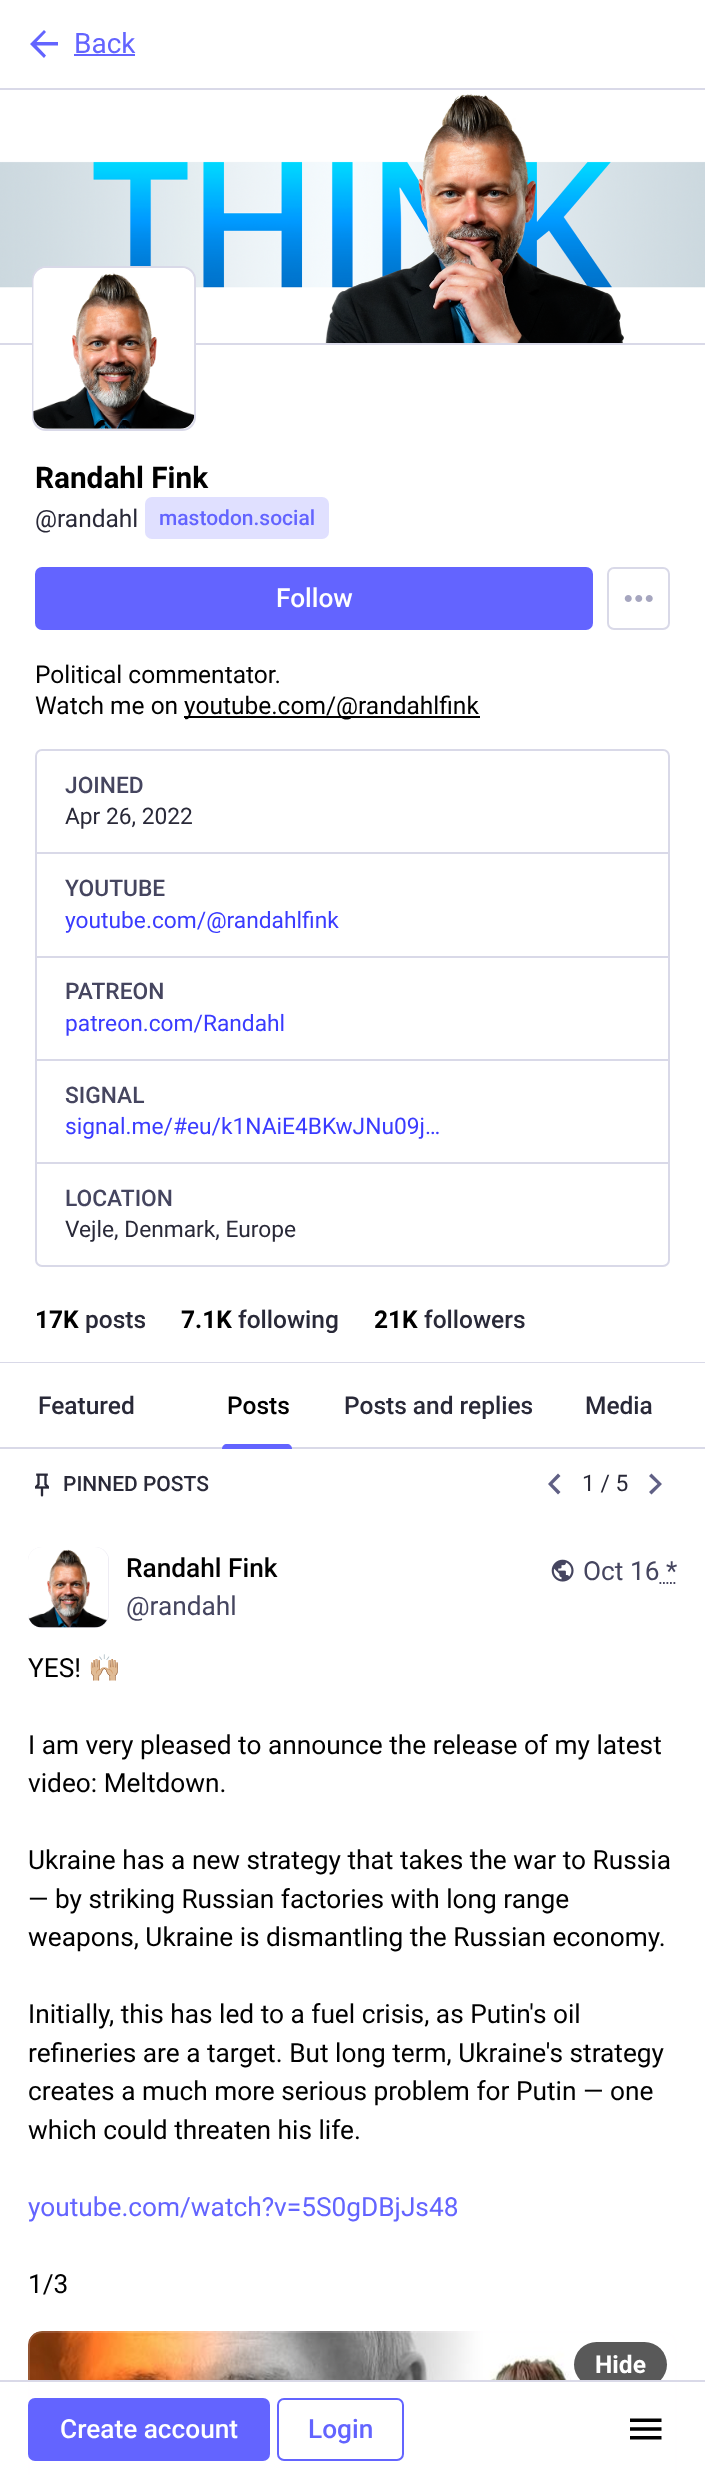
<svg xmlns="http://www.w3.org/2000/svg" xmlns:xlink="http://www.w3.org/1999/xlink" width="705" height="2475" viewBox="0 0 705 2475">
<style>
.cls-1{font:28px Roboto;fill:#6364ff}
.cls-2{font:bold 29.75px Roboto;fill:#000000}
.cls-3{font:24.5px Roboto;fill:#292938}
.cls-4{font:500 21px Roboto;fill:#6364ff}
.cls-5{font:500 26.25px Roboto;fill:#ffffff}
.cls-6{font:24.5px Roboto;fill:#000000}
.cls-7{font:500 22.75px Roboto;fill:#45455f}
.cls-8{font:22.75px Roboto;fill:#292938}
.cls-9{font:22.75px Roboto;fill:#3a3bff}
.cls-10{font:bold 24.5px Roboto;fill:#000000}
.cls-11{font:500 24.5px Roboto;fill:#292938}
.cls-12{font:500 24.5px Roboto;fill:#000000}
.cls-13{font:500 21px Roboto;fill:#292938}
.cls-14{font:500 26.25px Roboto;fill:#000000}
.cls-15{font:26.25px Roboto;fill:#45455f}
.cls-16{font:26.25px Roboto;fill:#000000}
.cls-17{font:26.25px Noto Color Emoji;fill:#000000}
.cls-18{font:26.25px Roboto;fill:#6364ff}
.cls-19{font:bold 24.5px Roboto;fill:#ffffff}
.cls-20{font:500 26.25px Roboto;fill:#6364ff}
</style>
<rect width="100%" height="100%" fill="#ffffff"/>
<rect fill="#d9d9e8" x="0" y="88" width="705" height="2"/>
<path fill="#6364ff" d="M36.5 45.5L46 55.5L44 58L30 44L44 30L46 32L36.5 42H58V45.5Z"/>
<rect fill="#6364ff" x="74" y="54" width="61" height="2"/>
<rect fill="#d9d9e8" x="0" y="343" width="705" height="2"/>
<image xlink:href="image0.png" x="0" y="90" width="705" height="253"/>
<rect fill="#d9d9e8" x="0" y="1362" width="705" height="1"/>
<rect fill="#ffffff" stroke="#d9d9e8" stroke-width="2" x="33" y="267" width="162" height="163" rx="13"/>
<image xlink:href="image1.png" x="33" y="268" width="162" height="161"/>
<rect fill="#e0e0ff" x="145" y="497" width="184" height="42" rx="7"/>
<rect fill="#6364ff" x="35" y="567" width="558" height="63" rx="7"/>
<rect fill="none" stroke="#d9d9e8" stroke-width="2" x="608" y="568" width="61" height="61" rx="6"/>
<image xlink:href="image2.png" x="624" y="595" width="29" height="7"/>
<rect fill="#000000" x="184" y="716" width="296" height="2"/>
<rect fill="none" stroke="#d9d9e8" stroke-width="2" x="36" y="750" width="633" height="516" rx="6"/>
<rect fill="#d9d9e8" x="37" y="852" width="632" height="2"/>
<rect fill="#d9d9e8" x="37" y="956" width="632" height="2"/>
<rect fill="#d9d9e8" x="37" y="1059" width="632" height="2"/>
<rect fill="#d9d9e8" x="37" y="1162" width="632" height="2"/>
<rect fill="#d9d9e8" x="0" y="1447" width="705" height="2"/>
<path fill="#6364ff" d="M227 1444H287C290 1444 292 1446 292 1449H222C222 1446 224 1444 227 1444Z"/>
<image xlink:href="image3.png" x="35" y="1473" width="14" height="24"/>
<path fill="#606085" d="M558 1494.5L548 1484L558 1473.5L560.5 1476L552.5 1484L560.5 1492Z"/>
<path fill="#606085" d="M657.5 1484L649 1476L651.5 1473.5L662 1484L651.5 1494.5L649 1492Z"/>
<rect fill="#e8e6f0" x="28" y="1547" width="81" height="81" rx="14"/>
<image xlink:href="image4.png" x="28" y="1547" width="81" height="81"/>
<image xlink:href="image5.png" x="551" y="1559" width="23" height="23"/>
<path fill="none" stroke="#45455f" stroke-width="1.8" stroke-dasharray="1.75 1.75" d="M659.5 1583H677"/>
<image xlink:href="image6.png" x="28" y="2331" width="568" height="49"/>
<rect fill="none" stroke="#fcf8ff" stroke-opacity="0.15" stroke-width="2" x="29" y="2332" width="647" height="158" rx="13"/>
<rect fill="#595959" x="574" y="2342" width="93" height="45" rx="22.5"/>
<rect fill="#ffffff" x="582" y="2382" width="77" height="5"/>
<rect fill="#d9d9e8" x="0" y="2380" width="705" height="2"/>
<rect fill="#6364ff" x="28" y="2398" width="242" height="63" rx="7"/>
<rect fill="none" stroke="#6364ff" stroke-width="2" x="278" y="2399" width="125" height="61" rx="6"/>
<image xlink:href="image7.png" x="630" y="2418" width="32" height="22"/>
<text class="cls-1" x="74" y="53">Back</text>
<text class="cls-2" x="35" y="488">Randahl Fink</text>
<text class="cls-3" x="35" y="527">@randahl</text>
<text class="cls-4" x="159" y="525">mastodon.social</text>
<text class="cls-5" x="276" y="607">Follow</text>
<text class="cls-6"><tspan x="35" y="683">Political commentator.</tspan><tspan x="35" y="714">Watch me on</tspan></text>
<text class="cls-6" x="184" y="714">youtube.com/@randahlfink</text>
<text class="cls-7" x="65" y="793">JOINED</text>
<text class="cls-8" x="65" y="824">Apr 26, 2022</text>
<text class="cls-7" x="65" y="896">YOUTUBE</text>
<text class="cls-9" x="65" y="928">youtube.com/@randahlfink</text>
<text class="cls-7" x="65" y="999">PATREON</text>
<text class="cls-9" x="65" y="1031">patreon.com/Randahl</text>
<text class="cls-7" x="65" y="1103">SIGNAL</text>
<text class="cls-9" x="65" y="1134">signal.me/#eu/k1NAiE4BKwJNu09j…</text>
<text class="cls-7" x="65" y="1206">LOCATION</text>
<text class="cls-8" x="65" y="1237">Vejle, Denmark, Europe</text>
<text class="cls-10" x="35" y="1328">17K</text>
<text class="cls-11" x="85" y="1328">posts</text>
<text class="cls-10" x="181" y="1328">7.1K</text>
<text class="cls-11" x="238" y="1328">following</text>
<text class="cls-10" x="374" y="1328">21K</text>
<text class="cls-11" x="424" y="1328">followers</text>
<text class="cls-11" x="38" y="1414">Featured</text>
<text class="cls-12" x="227" y="1414">Posts</text>
<text class="cls-11" x="344" y="1414">Posts and replies</text>
<text class="cls-11" x="585" y="1414">Media</text>
<text class="cls-13" x="63" y="1491">PINNED POSTS</text>
<text class="cls-8" x="582" y="1491">1 / 5</text>
<text class="cls-14" x="126" y="1577">Randahl Fink</text>
<text class="cls-15" x="126" y="1615">@randahl</text>
<text class="cls-15" x="583" y="1580">Oct 16 *</text>
<text class="cls-16" x="28" y="1677">YES!</text>
<text class="cls-17" x="88" y="1677">🙌🏼</text>
<text class="cls-16"><tspan x="28" y="1754">I am very pleased to announce the release of my latest</tspan><tspan x="28" y="1792">video: Meltdown.</tspan></text>
<text class="cls-16"><tspan x="28" y="1869">Ukraine has a new strategy that takes the war to Russia</tspan><tspan x="28" y="1908">— by striking Russian factories with long range</tspan><tspan x="28" y="1946">weapons, Ukraine is dismantling the Russian economy.</tspan></text>
<text class="cls-16"><tspan x="28" y="2023">Initially, this has led to a fuel crisis, as Putin's oil</tspan><tspan x="28" y="2062">refineries are a target. But long term, Ukraine's strategy</tspan><tspan x="28" y="2100">creates a much more serious problem for Putin — one</tspan><tspan x="28" y="2139">which could threaten his life.</tspan></text>
<text class="cls-18" x="28" y="2216">youtube.com/watch?v=5S0gDBjJs48</text>
<text class="cls-16" x="28" y="2293">1/3</text>
<text class="cls-19" x="595" y="2373">Hide</text>
<text class="cls-5" x="60" y="2438">Create account</text>
<text class="cls-20" x="308" y="2438">Login</text>
</svg>
